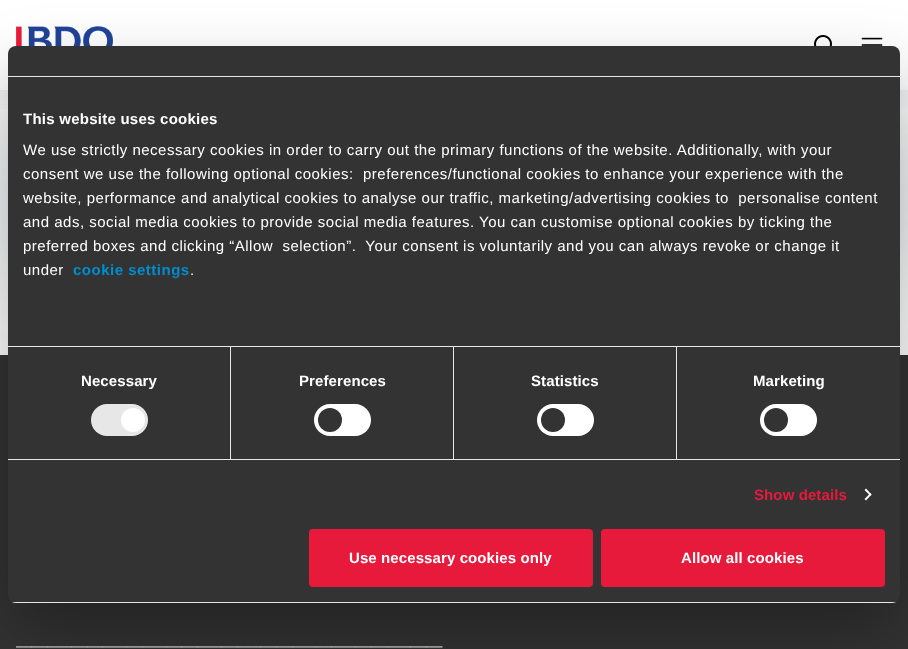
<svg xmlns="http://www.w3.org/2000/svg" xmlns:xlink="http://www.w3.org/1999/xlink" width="908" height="649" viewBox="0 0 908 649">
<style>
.cls-1{font:bold 15px Liberation Sans;letter-spacing:0.25px;fill:#ffffff}
.cls-2{font:15px Liberation Sans;letter-spacing:0.5px;fill:#ffffff}
.cls-3{font:bold 15px Liberation Sans;letter-spacing:0.5px;fill:#008fd2}
.cls-4{font:bold 15px Liberation Sans;letter-spacing:0.1px;fill:#ffffff}
.cls-5{font:bold 15px Liberation Sans;letter-spacing:0.1px;fill:#e81a3b}
.cls-6{font:14px Proxima Nova;fill:#ffffff}
</style>
<defs>
<clipPath id="clip1"><rect x="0" y="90" width="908" height="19"/></clipPath>
<clipPath id="clip2"><rect x="8" y="46" width="892" height="557" rx="8"/></clipPath>
<linearGradient id="g1" gradientUnits="userSpaceOnUse" x1="448" y1="346" x2="448" y2="271"><stop offset="0" stop-color="#333333"/><stop offset="0.5" stop-color="#333333" stop-opacity="0.8"/><stop offset="1" stop-color="#333333" stop-opacity="0"/></linearGradient>
</defs>
<rect width="100%" height="100%" fill="#ffffff"/>
<rect fill="#5b6e7f" fill-opacity="0.25" filter="blur(40px)" x="16" y="144" width="876" height="123"/>
<rect fill="#ffffff" x="41" y="83" width="826" height="7"/>
<g clip-path="url(#clip1)">
<rect fill="#5b6e7f" fill-opacity="0.15" filter="blur(10px)" x="0" y="10" width="908" height="90"/>
</g>
<image xlink:href="image0.png" x="16" y="26" width="97" height="20"/>
<image xlink:href="image1.png" x="814" y="35" width="18" height="11"/>
<image xlink:href="image2.png" x="861" y="37" width="22" height="9"/>
<rect fill="#333333" x="0" y="355" width="908" height="294"/>
<rect fill="#000000" fill-opacity="0.3" filter="blur(34px)" x="8" y="78" width="892" height="557" rx="8"/>
<rect fill="#333333" x="8" y="46" width="892" height="557" rx="8"/>
<rect fill="#e7e7e7" x="8" y="76" width="892" height="1"/>
<rect fill="#e7e7e7" x="8" y="346" width="892" height="1"/>
<rect fill="#e7e7e7" x="8" y="459" width="892" height="1"/>
<rect fill="#e7e7e7" x="230" y="347" width="1" height="112"/>
<rect fill="#e7e7e7" x="91" y="404" width="57" height="32" rx="16"/>
<circle fill="#ffffff" cx="133" cy="420" r="12"/>
<rect fill="#e7e7e7" x="453" y="347" width="1" height="112"/>
<rect fill="#ffffff" x="314" y="404" width="57" height="32" rx="16"/>
<circle fill="#333333" cx="330" cy="420" r="12"/>
<rect fill="#e7e7e7" x="676" y="347" width="1" height="112"/>
<rect fill="#ffffff" x="537" y="404" width="57" height="32" rx="16"/>
<circle fill="#333333" cx="553" cy="420" r="12"/>
<rect fill="#ffffff" x="760" y="404" width="57" height="32" rx="16"/>
<circle fill="#333333" cx="776" cy="420" r="12"/>
<path fill="#ffffff" d="M866 488.5L871.5 494.5L870.5 496L864.5 490Z"/>
<path fill="#ffffff" d="M870.5 493L871.5 494.5L866 500.5L864.5 499Z"/>
<g clip-path="url(#clip2)">
<rect fill="#e7e7e7" x="8" y="602" width="892" height="1"/>
</g>
<rect fill="#e81a3b" stroke="#e81a3b" stroke-width="2" x="310" y="530" width="282" height="56" rx="3"/>
<rect fill="#e81a3b" stroke="#e81a3b" stroke-width="2" x="602" y="530" width="282" height="56" rx="3"/>
<text class="cls-1" x="23" y="124">This website uses cookies</text>
<text class="cls-2" xml:space="preserve"><tspan x="23" y="155">We use strictly necessary cookies in order to carry out the primary functions of the website. Additionally, with your</tspan><tspan x="23" y="179">consent we use the following optional cookies:  preferences/functional cookies to enhance your experience with the</tspan><tspan x="23" y="203">website, performance and analytical cookies to analyse our traffic, marketing/advertising cookies to  personalise content</tspan><tspan x="23" y="227">and ads, social media cookies to provide social media features. You can customise optional cookies by ticking the</tspan><tspan x="23" y="251">preferred boxes and clicking “Allow  selection”.  Your consent is voluntarily and you can always revoke or change it</tspan><tspan x="23" y="275">under</tspan></text>
<text class="cls-3" x="73" y="275">cookie settings</text>
<text class="cls-2" x="190" y="275">.</text>
<rect fill="url(#g1)" x="24" y="272" width="169" height="7"/>
<text class="cls-4" x="81" y="386">Necessary</text>
<text class="cls-4" x="299" y="386">Preferences</text>
<text class="cls-4" x="531" y="386">Statistics</text>
<text class="cls-4" x="753" y="386">Marketing</text>
<text class="cls-5" x="754" y="500">Show details</text>
<text class="cls-4" x="349" y="563">Use necessary cookies only</text>
<text class="cls-4" x="681" y="563">Allow all cookies</text>
<text class="cls-6" x="16" y="646">______________________________________________________</text>
</svg>
